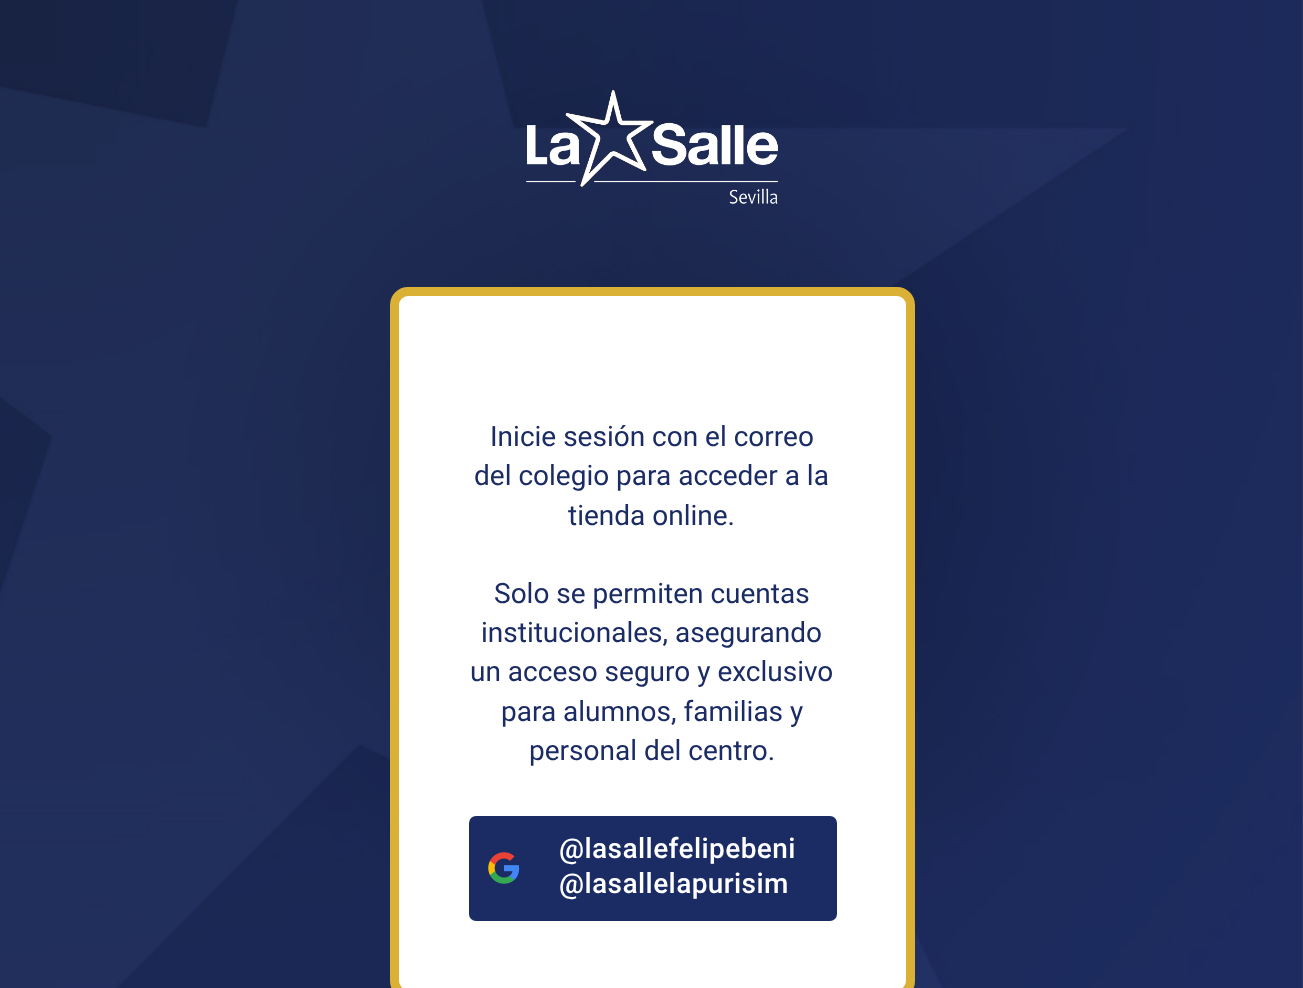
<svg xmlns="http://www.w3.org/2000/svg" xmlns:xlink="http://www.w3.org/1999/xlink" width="1303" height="988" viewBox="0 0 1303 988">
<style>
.cls-1{font:28px Roboto;fill:#1b2c65}
.cls-2{font:500 28px Roboto;letter-spacing:0.4px;fill:#ffffff}
</style>
<rect width="100%" height="100%" fill="#ffffff"/>
<image xlink:href="image0.png" x="0" y="0" width="1303" height="988"/>
<image xlink:href="image1.png" x="526" y="90" width="252" height="114"/>
<rect fill="#ffffff" stroke="#dab135" stroke-width="9" x="394.5" y="291.5" width="516" height="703" rx="13.5"/>
<rect fill="#1b2c65" x="469" y="816" width="368" height="105" rx="7"/>
<image xlink:href="image2.png" x="488" y="852" width="32" height="32"/>
<text class="cls-1" x="490" y="446">Inicie sesión con el correo</text>
<text class="cls-1" x="474" y="485">del colegio para acceder a la</text>
<text class="cls-1" x="568" y="525">tienda online.</text>
<text class="cls-1" x="494" y="603">Solo se permiten cuentas</text>
<text class="cls-1" x="481" y="642">institucionales, asegurando</text>
<text class="cls-1" x="470" y="681">un acceso seguro y exclusivo</text>
<text class="cls-1" x="501" y="721">para alumnos, familias y</text>
<text class="cls-1" x="529" y="760">personal del centro.</text>
<text class="cls-2"><tspan x="559" y="858">@lasallefelipebeni</tspan><tspan x="559" y="893">@lasallelapurisim</tspan></text>
</svg>
